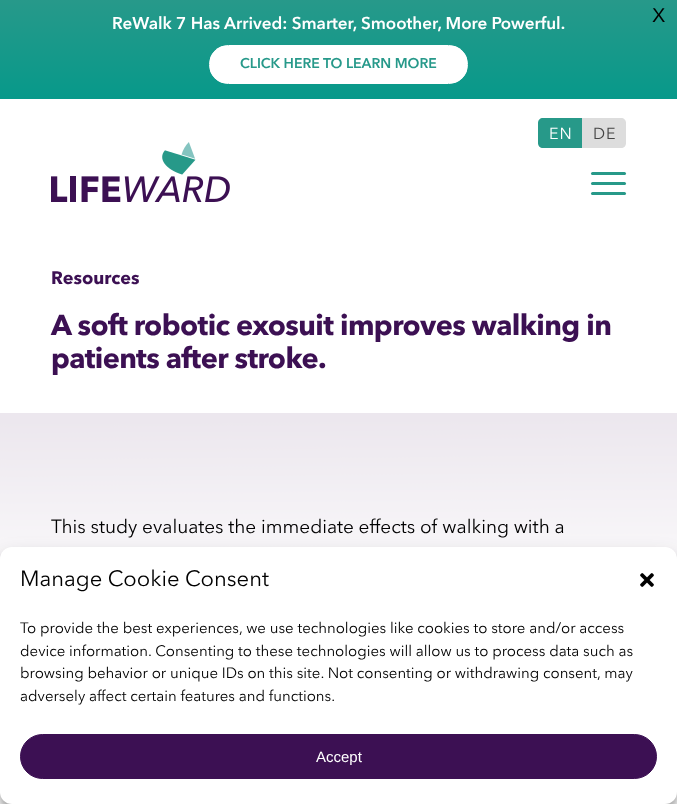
<svg xmlns="http://www.w3.org/2000/svg" xmlns:xlink="http://www.w3.org/1999/xlink" width="677" height="804" viewBox="0 0 677 804">
<style>
.cls-1{font:bold 17px 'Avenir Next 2';fill:#ffffff}
.cls-2{font:bold 14px 'Avenir Next 2';fill:#27998a}
.cls-3{font:20px Liberation Sans;fill:#000000}
.cls-4{font:16px Avenir Next;letter-spacing:1px;fill:#ffffff}
.cls-5{font:16px Avenir Next;letter-spacing:1px;fill:#444444}
.cls-6{font:bold 18px Avenir Next;fill:#3c1053}
.cls-7{font:bold 28.75px Avenir Next;letter-spacing:-0.6px;fill:#3c1053}
.cls-8{font:19px Avenir Next;fill:#000000}
.cls-9{font:22px Avenir Next;fill:#000000}
.cls-10{font:15px Avenir Next;fill:#000000}
.cls-11{font:15px Liberation Sans;fill:#ffffff}
</style>
<defs>
<linearGradient id="g1" gradientUnits="userSpaceOnUse" x1="339" y1="0" x2="339" y2="99"><stop offset="0" stop-color="#27998a"/><stop offset="1" stop-color="#07998a"/></linearGradient>
<clipPath id="clip1"><rect x="209" y="45" width="259" height="39" rx="19.5"/></clipPath>
</defs>
<rect width="100%" height="100%" fill="#ffffff"/>
<rect fill="url(#g1)" x="0" y="0" width="677" height="99"/>
<g clip-path="url(#clip1)">
<rect fill="#ffffff" x="210" y="46" width="257" height="37"/>
</g>
<rect fill="none" stroke="#ffffff" x="209.5" y="45.5" width="258" height="38" rx="19"/>
<path fill="#279989" d="M543 118H582V148H543C540 148 538 146 538 143V123C538 120 540 118 543 118Z"/>
<path fill="#dddddd" d="M582 118H621C624 118 626 120 626 123V143C626 146 624 148 621 148H582Z"/>
<rect fill="#279989" x="591" y="182" width="35" height="3" rx="1.5"/>
<rect fill="#279989" x="591" y="172" width="35" height="3" rx="1.5"/>
<rect fill="#279989" x="591" y="192" width="35" height="3" rx="1.5"/>
<image xlink:href="image0.png" x="51" y="142" width="179" height="60"/>
<image xlink:href="image1.png" x="0" y="413" width="677" height="146"/>
<rect fill="#808080" filter="blur(2.5px)" x="607" y="730" width="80" height="60" rx="2"/>
<rect fill="#000000" fill-opacity="0.23" filter="blur(3px)" x="0" y="553" width="677" height="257" rx="12"/>
<rect fill="#000000" fill-opacity="0.19" filter="blur(10px)" x="0" y="557" width="677" height="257" rx="12"/>
<rect fill="#ffffff" x="0" y="547" width="677" height="257" rx="12"/>
<image xlink:href="image2.png" x="640" y="573" width="14" height="14"/>
<rect fill="#3c1053" stroke="#3c1053" x="20.5" y="734.5" width="636" height="44" rx="22"/>
<text class="cls-1" x="112" y="29">ReWalk 7 Has Arrived: Smarter, Smoother, More Powerful.</text>
<text class="cls-2" x="240" y="68">CLICK HERE TO LEARN MORE</text>
<text class="cls-3" x="652" y="22">X</text>
<text class="cls-4" x="549" y="139">EN</text>
<text class="cls-5" x="593" y="139">DE</text>
<text class="cls-6" x="51" y="284">Resources</text>
<text class="cls-7"><tspan x="51" y="335">A soft robotic exosuit improves walking in</tspan><tspan x="51" y="368">patients after stroke.</tspan></text>
<text class="cls-8" x="51" y="533">This study evaluates the immediate effects of walking with a</text>
<text class="cls-9" x="20" y="586">Manage Cookie Consent</text>
<text class="cls-10"><tspan x="20" y="633">To provide the best experiences, we use technologies like cookies to store and/or access</tspan><tspan x="20" y="656">device information. Consenting to these technologies will allow us to process data such as</tspan><tspan x="20" y="678">browsing behavior or unique IDs on this site. Not consenting or withdrawing consent, may</tspan><tspan x="20" y="701">adversely affect certain features and functions.</tspan></text>
<text class="cls-11" x="316" y="762">Accept</text>
</svg>
